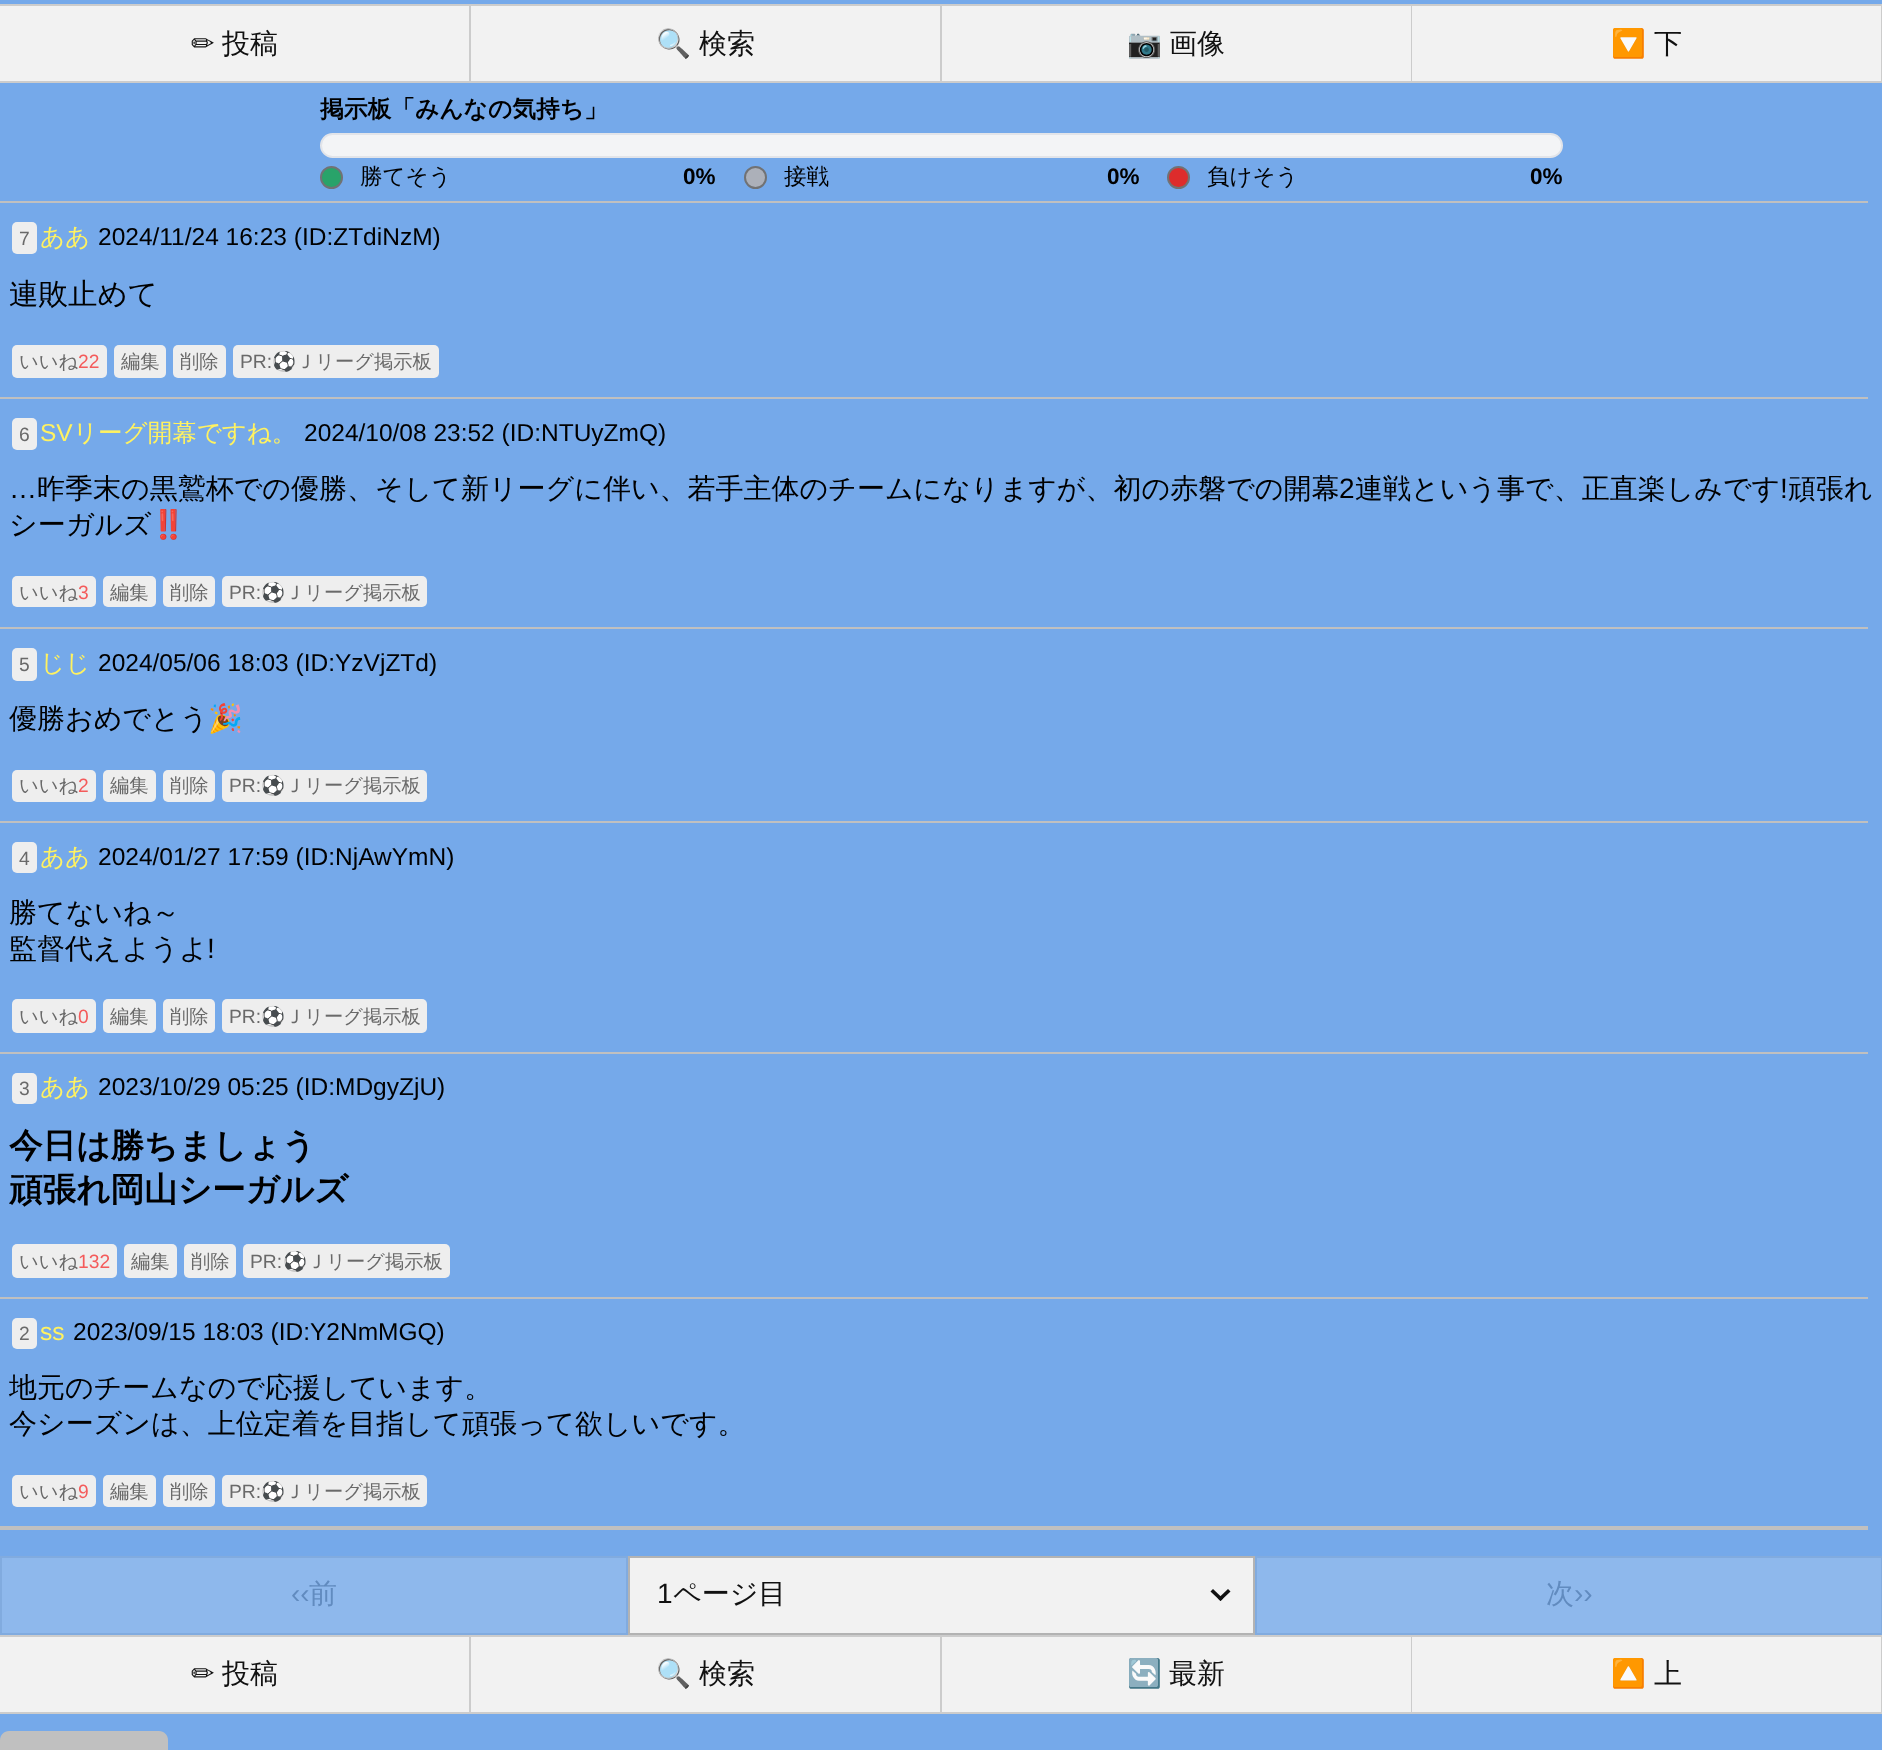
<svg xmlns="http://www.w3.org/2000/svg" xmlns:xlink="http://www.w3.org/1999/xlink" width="1882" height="1750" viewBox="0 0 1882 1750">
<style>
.cls-1{font:28px DejaVu Sans;fill:#111111}
.cls-2{font:500 28px WenQuanYi Zen Hei;fill:#111111}
.cls-3{font:28px Noto Color Emoji;fill:#111111}
.cls-4{font:bold 23.75px WenQuanYi Zen Hei;fill:#000000}
.cls-5{font:500 22.5px WenQuanYi Zen Hei;fill:#000000}
.cls-6{font:bold 22.5px Liberation Sans;fill:#000000}
.cls-7{font:19.25px Liberation Sans;fill:#696969}
.cls-8{font:500 24.5px WenQuanYi Zen Hei;fill:#fff260}
.cls-9{font:24.5px Liberation Sans;fill:#000000}
.cls-10{font:500 29.5px WenQuanYi Zen Hei;fill:#000000}
.cls-11{font:500 19.25px WenQuanYi Zen Hei;fill:#696969}
.cls-12{font:19.25px Liberation Sans;fill:#f45b5b}
.cls-13{font:19.25px Noto Color Emoji;fill:#696969}
.cls-14{font:24.5px Liberation Sans;fill:#fff260}
.cls-15{font:28px Liberation Sans;fill:#000000}
.cls-16{font:500 28px WenQuanYi Zen Hei;fill:#000000}
.cls-17{font:28px Noto Color Emoji;fill:#000000}
.cls-18{font:bold 33.6px WenQuanYi Zen Hei;fill:#000000}
.cls-19{font:28px Liberation Sans;fill:#618bbf}
.cls-20{font:500 28px WenQuanYi Zen Hei;fill:#618bbf}
.cls-21{font:28px Liberation Sans;fill:#111111}
</style>
<rect width="100%" height="100%" fill="#75a9ea"/>
<rect fill="#f2f2f2" x="0" y="6" width="469" height="75"/>
<rect fill="#cccccc" x="0" y="4" width="1882" height="2"/>
<rect fill="#cccccc" x="469" y="4" width="2" height="78"/>
<rect fill="#cccccc" x="0" y="81" width="471" height="2"/>
<rect fill="#f2f2f2" x="471" y="6" width="469" height="75"/>
<rect fill="#cccccc" x="940" y="4" width="2" height="78"/>
<rect fill="#cccccc" x="471" y="81" width="471" height="2"/>
<rect fill="#f2f2f2" x="942" y="6" width="469" height="75"/>
<rect fill="#cccccc" x="1411" y="4" width="1" height="78"/>
<rect fill="#cccccc" x="942" y="81" width="470" height="2"/>
<rect fill="#f2f2f2" x="1412" y="6" width="469" height="75"/>
<rect fill="#cccccc" x="1881" y="4" width="1" height="78"/>
<rect fill="#cccccc" x="1412" y="81" width="470" height="2"/>
<rect fill="#f3f4f6" stroke="#e2e4e9" stroke-width="2" x="321" y="134" width="1241" height="23" rx="11.5"/>
<circle fill="#29a36a" stroke="#717274" stroke-width="2" cx="331.5" cy="177.5" r="10.5"/>
<circle fill="#acb0b9" stroke="#717274" stroke-width="2" cx="755.5" cy="177.5" r="10.5"/>
<circle fill="#dd2c2c" stroke="#717274" stroke-width="2" cx="1178.5" cy="177.5" r="10.5"/>
<rect fill="#c0c0c0" x="0" y="201" width="1868" height="2"/>
<rect fill="#eeeeee" x="12" y="222" width="25" height="32" rx="5"/>
<rect fill="#eeeeee" x="12" y="345" width="95" height="33" rx="5"/>
<rect fill="#eeeeee" x="114" y="345" width="52" height="33" rx="5"/>
<rect fill="#eeeeee" x="173" y="345" width="53" height="33" rx="5"/>
<rect fill="#eeeeee" x="233" y="345" width="206" height="33" rx="5"/>
<rect fill="#c0c0c0" x="0" y="397" width="1868" height="2"/>
<rect fill="#eeeeee" x="12" y="418" width="25" height="32" rx="5"/>
<rect fill="#eeeeee" x="12" y="576" width="84" height="31" rx="5"/>
<rect fill="#eeeeee" x="103" y="576" width="53" height="31" rx="5"/>
<rect fill="#eeeeee" x="163" y="576" width="52" height="31" rx="5"/>
<rect fill="#eeeeee" x="222" y="576" width="205" height="31" rx="5"/>
<rect fill="#c0c0c0" x="0" y="627" width="1868" height="2"/>
<rect fill="#eeeeee" x="12" y="648" width="25" height="33" rx="5"/>
<rect fill="#eeeeee" x="12" y="770" width="84" height="32" rx="5"/>
<rect fill="#eeeeee" x="103" y="770" width="53" height="32" rx="5"/>
<rect fill="#eeeeee" x="163" y="770" width="52" height="32" rx="5"/>
<rect fill="#eeeeee" x="222" y="770" width="205" height="32" rx="5"/>
<rect fill="#c0c0c0" x="0" y="821" width="1868" height="2"/>
<rect fill="#eeeeee" x="12" y="842" width="25" height="31" rx="5"/>
<rect fill="#eeeeee" x="12" y="999" width="84" height="34" rx="5"/>
<rect fill="#eeeeee" x="103" y="999" width="53" height="34" rx="5"/>
<rect fill="#eeeeee" x="163" y="999" width="52" height="34" rx="5"/>
<rect fill="#eeeeee" x="222" y="999" width="205" height="34" rx="5"/>
<rect fill="#c0c0c0" x="0" y="1052" width="1868" height="2"/>
<rect fill="#eeeeee" x="12" y="1073" width="25" height="31" rx="5"/>
<rect fill="#eeeeee" x="12" y="1244" width="105" height="34" rx="5"/>
<rect fill="#eeeeee" x="124" y="1244" width="53" height="34" rx="5"/>
<rect fill="#eeeeee" x="184" y="1244" width="52" height="34" rx="5"/>
<rect fill="#eeeeee" x="243" y="1244" width="207" height="34" rx="5"/>
<rect fill="#c0c0c0" x="0" y="1297" width="1868" height="2"/>
<rect fill="#eeeeee" x="12" y="1318" width="25" height="31" rx="5"/>
<rect fill="#eeeeee" x="12" y="1475" width="84" height="32" rx="5"/>
<rect fill="#eeeeee" x="103" y="1475" width="53" height="32" rx="5"/>
<rect fill="#eeeeee" x="163" y="1475" width="52" height="32" rx="5"/>
<rect fill="#eeeeee" x="222" y="1475" width="205" height="32" rx="5"/>
<rect fill="#c0c0c0" x="0" y="1526" width="1868" height="2"/>
<rect fill="#c0c0c0" x="0" y="1528" width="1868" height="2"/>
<rect fill="#8eb8ec" stroke="#81abdf" stroke-width="2" x="1" y="1557" width="626" height="77"/>
<rect fill="#f2f2f2" stroke="#b3b3b3" stroke-width="2" x="629" y="1557" width="625" height="77"/>
<path fill="#111111" d="M1228 1589L1230.5 1591.5L1220.5 1601L1218 1598.5Z"/>
<path fill="#111111" d="M1213 1589L1223 1598.5L1220.5 1601L1210.5 1591.5Z"/>
<rect fill="#8eb8ec" stroke="#81abdf" stroke-width="2" x="1256" y="1557" width="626" height="77"/>
<rect fill="#f2f2f2" x="0" y="1637" width="469" height="75"/>
<rect fill="#cccccc" x="0" y="1635" width="1882" height="2"/>
<rect fill="#cccccc" x="469" y="1635" width="2" height="78"/>
<rect fill="#cccccc" x="0" y="1712" width="471" height="2"/>
<rect fill="#f2f2f2" x="471" y="1637" width="469" height="75"/>
<rect fill="#cccccc" x="940" y="1635" width="2" height="78"/>
<rect fill="#cccccc" x="471" y="1712" width="471" height="2"/>
<rect fill="#f2f2f2" x="942" y="1637" width="469" height="75"/>
<rect fill="#cccccc" x="1411" y="1635" width="1" height="78"/>
<rect fill="#cccccc" x="942" y="1712" width="470" height="2"/>
<rect fill="#f2f2f2" x="1412" y="1637" width="469" height="75"/>
<rect fill="#cccccc" x="1881" y="1635" width="1" height="78"/>
<rect fill="#cccccc" x="1412" y="1712" width="470" height="2"/>
<path fill="#c0c0c0" d="M9 1731H159C164 1731 168 1735 168 1740V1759H0V1740C0 1735 4 1731 9 1731Z"/>
<text class="cls-1" x="191" y="53">✏</text>
<text class="cls-2" x="222" y="53">投稿</text>
<text class="cls-3" x="656" y="53">🔍</text>
<text class="cls-2" x="699" y="53">検索</text>
<text class="cls-3" x="1127" y="53">📷</text>
<text class="cls-2" x="1169" y="53">画像</text>
<text class="cls-3" x="1611" y="53">🔽</text>
<text class="cls-2" x="1654" y="53">下</text>
<text class="cls-4" x="320" y="117">掲示板「みんなの気持ち」</text>
<text class="cls-5" x="360" y="184">勝てそう</text>
<text class="cls-6" x="683" y="184">0%</text>
<text class="cls-5" x="784" y="184">接戦</text>
<text class="cls-6" x="1107" y="184">0%</text>
<text class="cls-5" x="1207" y="184">負けそう</text>
<text class="cls-6" x="1530" y="184">0%</text>
<text class="cls-7" x="19" y="245">7</text>
<text class="cls-8" x="40" y="245">ああ</text>
<text class="cls-9" x="98" y="245">2024/11/24 16:23 (ID:ZTdiNzM)</text>
<text class="cls-10" x="9" y="304">連敗止めて</text>
<text class="cls-11" x="19" y="368">いいね</text>
<text class="cls-12" x="78" y="368">22</text>
<text class="cls-11" x="121" y="368">編集</text>
<text class="cls-11" x="180" y="368">削除</text>
<text class="cls-7" x="240" y="368">PR:</text>
<text class="cls-13" x="272" y="368">⚽</text>
<text class="cls-11" x="296" y="368">Ｊリーグ掲示板</text>
<text class="cls-7" x="19" y="441">6</text>
<text class="cls-14" x="40" y="441">SV</text>
<text class="cls-8" x="73" y="441">リーグ開幕ですね。</text>
<text class="cls-9" x="304" y="441">2024/10/08 23:52 (ID:NTUyZmQ)</text>
<text class="cls-15" x="9" y="498">…</text>
<text class="cls-16" x="37" y="498">昨季末の黒鷲杯での優勝、そして新リーグに伴い、若手主体のチームになりますが、初の赤磐での開幕</text>
<text class="cls-15" x="1339" y="498">2</text>
<text class="cls-16" x="1355" y="498">連戦という事で、正直楽しみです</text>
<text class="cls-15" x="1780" y="498">!</text>
<text class="cls-16" x="1788" y="498">頑張れ</text>
<text class="cls-16" x="9" y="534">シーガルズ</text>
<text class="cls-17" x="151" y="534">‼️</text>
<text class="cls-11" x="19" y="599">いいね</text>
<text class="cls-12" x="78" y="599">3</text>
<text class="cls-11" x="110" y="599">編集</text>
<text class="cls-11" x="170" y="599">削除</text>
<text class="cls-7" x="229" y="599">PR:</text>
<text class="cls-13" x="261" y="599">⚽</text>
<text class="cls-11" x="285" y="599">Ｊリーグ掲示板</text>
<text class="cls-7" x="19" y="671">5</text>
<text class="cls-8" x="40" y="671">じじ</text>
<text class="cls-9" x="98" y="671">2024/05/06 18:03 (ID:YzVjZTd)</text>
<text class="cls-16" x="9" y="728">優勝おめでとう</text>
<text class="cls-17" x="208" y="728">🎉</text>
<text class="cls-11" x="19" y="792">いいね</text>
<text class="cls-12" x="78" y="792">2</text>
<text class="cls-11" x="110" y="792">編集</text>
<text class="cls-11" x="170" y="792">削除</text>
<text class="cls-7" x="229" y="792">PR:</text>
<text class="cls-13" x="261" y="792">⚽</text>
<text class="cls-11" x="285" y="792">Ｊリーグ掲示板</text>
<text class="cls-7" x="19" y="865">4</text>
<text class="cls-8" x="40" y="865">ああ</text>
<text class="cls-9" x="98" y="865">2024/01/27 17:59 (ID:NjAwYmN)</text>
<text class="cls-16"><tspan x="9" y="922">勝てないね～</tspan><tspan x="9" y="958">監督代えようよ</tspan></text>
<text class="cls-15" x="207" y="958">!</text>
<text class="cls-11" x="19" y="1023">いいね</text>
<text class="cls-12" x="78" y="1023">0</text>
<text class="cls-11" x="110" y="1023">編集</text>
<text class="cls-11" x="170" y="1023">削除</text>
<text class="cls-7" x="229" y="1023">PR:</text>
<text class="cls-13" x="261" y="1023">⚽</text>
<text class="cls-11" x="285" y="1023">Ｊリーグ掲示板</text>
<text class="cls-7" x="19" y="1095">3</text>
<text class="cls-8" x="40" y="1095">ああ</text>
<text class="cls-9" x="98" y="1095">2023/10/29 05:25 (ID:MDgyZjU)</text>
<text class="cls-18"><tspan x="9" y="1157">今日は勝ちましょう</tspan><tspan x="9" y="1201">頑張れ岡山シーガルズ</tspan></text>
<text class="cls-11" x="19" y="1268">いいね</text>
<text class="cls-12" x="78" y="1268">132</text>
<text class="cls-11" x="131" y="1268">編集</text>
<text class="cls-11" x="191" y="1268">削除</text>
<text class="cls-7" x="250" y="1268">PR:</text>
<text class="cls-13" x="283" y="1268">⚽</text>
<text class="cls-11" x="307" y="1268">Ｊリーグ掲示板</text>
<text class="cls-7" x="19" y="1340">2</text>
<text class="cls-14" x="40" y="1340">ss</text>
<text class="cls-9" x="73" y="1340">2023/09/15 18:03 (ID:Y2NmMGQ)</text>
<text class="cls-16"><tspan x="9" y="1397">地元のチームなので応援しています。</tspan><tspan x="9" y="1433">今シーズンは、上位定着を目指して頑張って欲しいです。</tspan></text>
<text class="cls-11" x="19" y="1498">いいね</text>
<text class="cls-12" x="78" y="1498">9</text>
<text class="cls-11" x="110" y="1498">編集</text>
<text class="cls-11" x="170" y="1498">削除</text>
<text class="cls-7" x="229" y="1498">PR:</text>
<text class="cls-13" x="261" y="1498">⚽</text>
<text class="cls-11" x="285" y="1498">Ｊリーグ掲示板</text>
<text class="cls-19" x="291" y="1603">‹‹</text>
<text class="cls-20" x="309" y="1603">前</text>
<text class="cls-21" x="657" y="1603">1</text>
<text class="cls-2" x="673" y="1603">ページ目</text>
<text class="cls-20" x="1546" y="1603">次</text>
<text class="cls-19" x="1574" y="1603">››</text>
<text class="cls-1" x="191" y="1683">✏</text>
<text class="cls-2" x="222" y="1683">投稿</text>
<text class="cls-3" x="656" y="1683">🔍</text>
<text class="cls-2" x="699" y="1683">検索</text>
<text class="cls-3" x="1127" y="1683">🔄</text>
<text class="cls-2" x="1169" y="1683">最新</text>
<text class="cls-3" x="1611" y="1683">🔼</text>
<text class="cls-2" x="1654" y="1683">上</text>
</svg>
